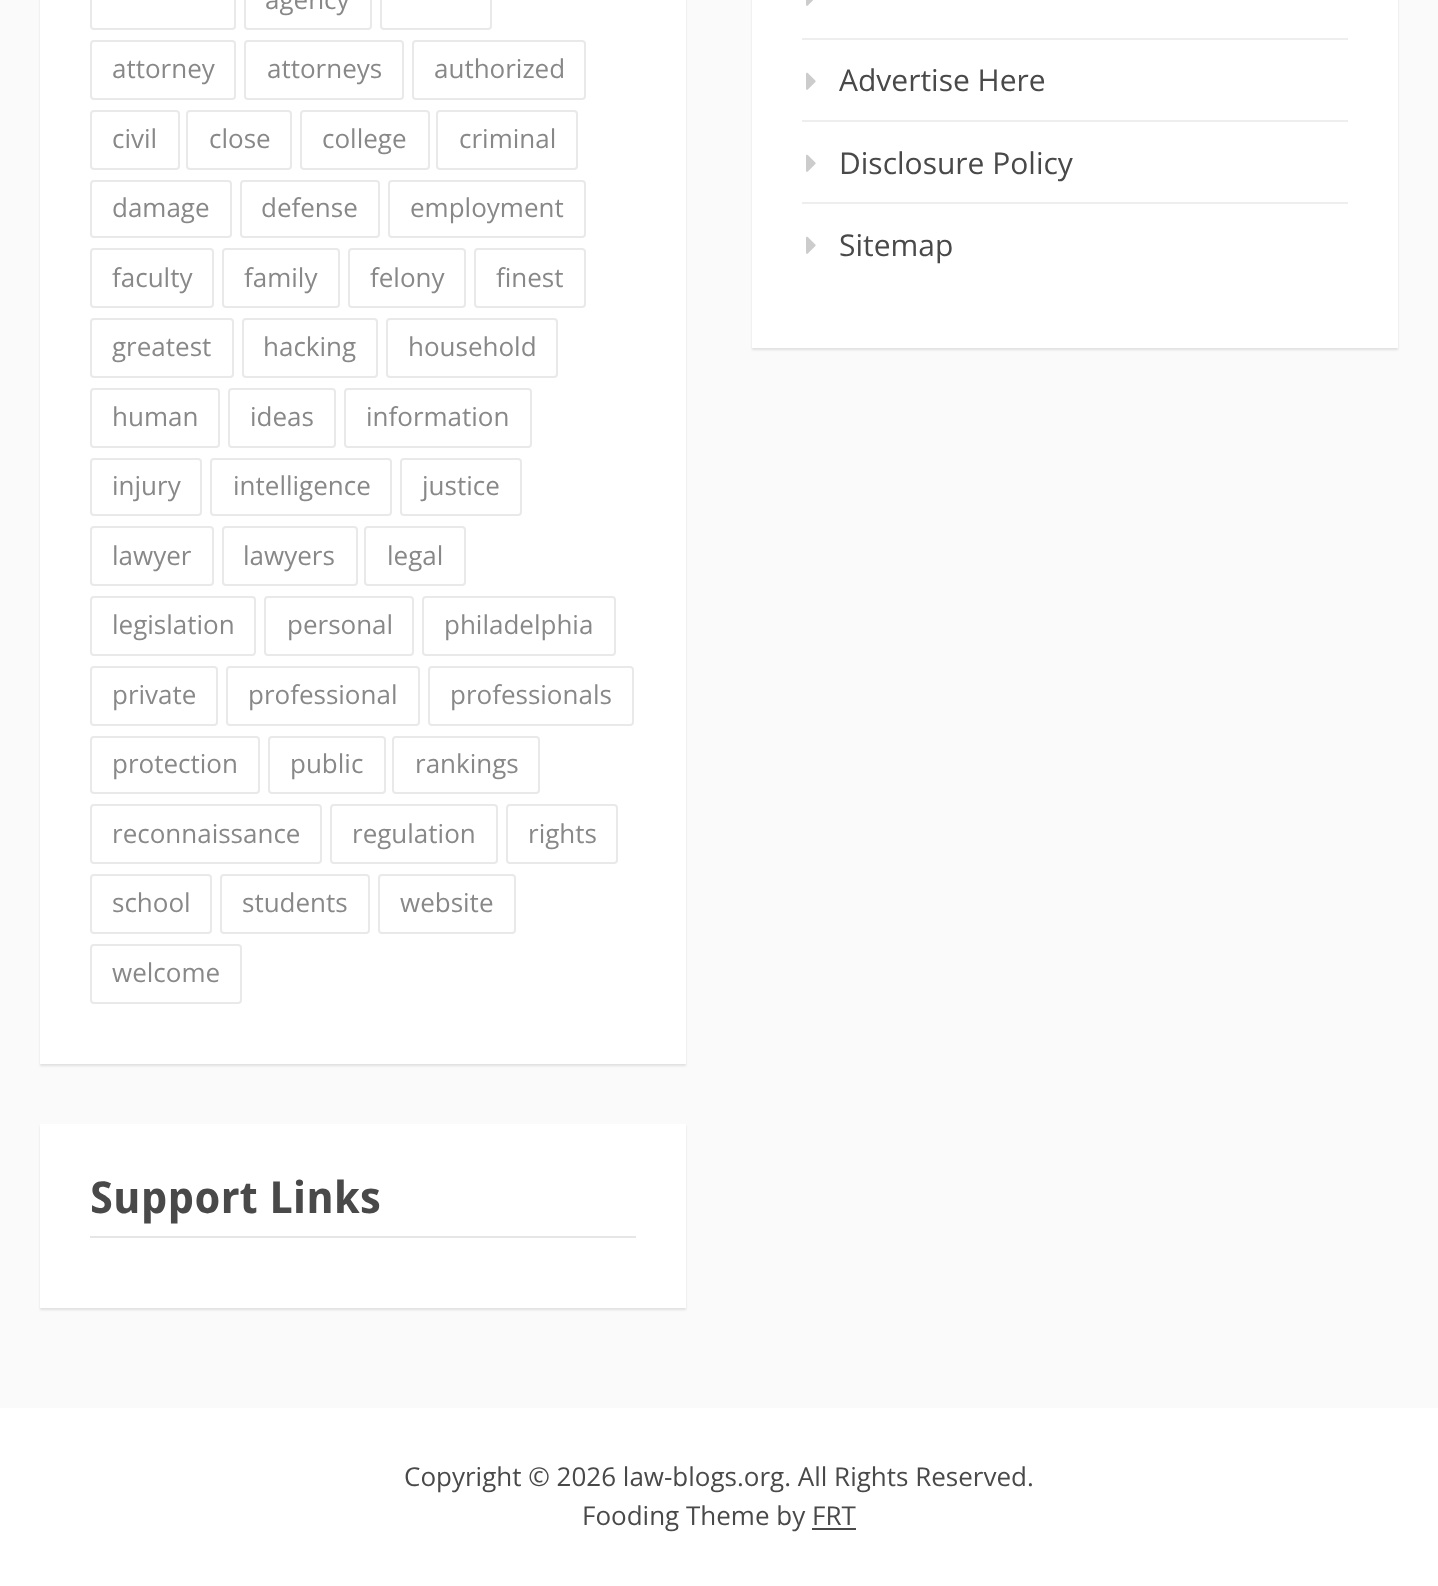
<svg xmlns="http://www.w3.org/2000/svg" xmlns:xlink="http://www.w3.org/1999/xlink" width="1438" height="1586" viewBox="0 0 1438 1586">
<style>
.cls-1{font:26px Open Sans;fill:#888888}
.cls-2{font:30px Open Sans;fill:#494949}
.cls-3{font:bold 44px Droid Sans;fill:#494949}
.cls-4{font:26px Open Sans;fill:#494949}
</style>
<rect width="100%" height="100%" fill="#fafafa"/>
<rect fill="#000000" fill-opacity="0.1" filter="blur(1px)" x="40" y="-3" width="646" height="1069"/>
<rect fill="#ffffff" x="40" y="0" width="646" height="1064"/>
<rect fill="none" stroke="#e9e9e9" stroke-width="2" x="91" y="-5" width="144" height="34" rx="3"/>
<rect fill="none" stroke="#e9e9e9" stroke-width="2" x="245" y="-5" width="126" height="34" rx="3"/>
<rect fill="none" stroke="#e9e9e9" stroke-width="2" x="381" y="-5" width="110" height="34" rx="3"/>
<rect fill="none" stroke="#e9e9e9" stroke-width="2" x="91" y="41" width="144" height="58" rx="3"/>
<rect fill="none" stroke="#e9e9e9" stroke-width="2" x="245" y="41" width="158" height="58" rx="3"/>
<rect fill="none" stroke="#e9e9e9" stroke-width="2" x="413" y="41" width="172" height="58" rx="3"/>
<rect fill="none" stroke="#e9e9e9" stroke-width="2" x="91" y="111" width="88" height="58" rx="3"/>
<rect fill="none" stroke="#e9e9e9" stroke-width="2" x="187" y="111" width="104" height="58" rx="3"/>
<rect fill="none" stroke="#e9e9e9" stroke-width="2" x="301" y="111" width="128" height="58" rx="3"/>
<rect fill="none" stroke="#e9e9e9" stroke-width="2" x="437" y="111" width="140" height="58" rx="3"/>
<rect fill="none" stroke="#e9e9e9" stroke-width="2" x="91" y="181" width="140" height="56" rx="3"/>
<rect fill="none" stroke="#e9e9e9" stroke-width="2" x="241" y="181" width="138" height="56" rx="3"/>
<rect fill="none" stroke="#e9e9e9" stroke-width="2" x="389" y="181" width="196" height="56" rx="3"/>
<rect fill="none" stroke="#e9e9e9" stroke-width="2" x="91" y="249" width="122" height="58" rx="3"/>
<rect fill="none" stroke="#e9e9e9" stroke-width="2" x="223" y="249" width="116" height="58" rx="3"/>
<rect fill="none" stroke="#e9e9e9" stroke-width="2" x="349" y="249" width="116" height="58" rx="3"/>
<rect fill="none" stroke="#e9e9e9" stroke-width="2" x="475" y="249" width="110" height="58" rx="3"/>
<rect fill="none" stroke="#e9e9e9" stroke-width="2" x="91" y="319" width="142" height="58" rx="3"/>
<rect fill="none" stroke="#e9e9e9" stroke-width="2" x="243" y="319" width="134" height="58" rx="3"/>
<rect fill="none" stroke="#e9e9e9" stroke-width="2" x="387" y="319" width="170" height="58" rx="3"/>
<rect fill="none" stroke="#e9e9e9" stroke-width="2" x="91" y="389" width="128" height="58" rx="3"/>
<rect fill="none" stroke="#e9e9e9" stroke-width="2" x="229" y="389" width="106" height="58" rx="3"/>
<rect fill="none" stroke="#e9e9e9" stroke-width="2" x="345" y="389" width="186" height="58" rx="3"/>
<rect fill="none" stroke="#e9e9e9" stroke-width="2" x="91" y="459" width="110" height="56" rx="3"/>
<rect fill="none" stroke="#e9e9e9" stroke-width="2" x="211" y="459" width="180" height="56" rx="3"/>
<rect fill="none" stroke="#e9e9e9" stroke-width="2" x="401" y="459" width="120" height="56" rx="3"/>
<rect fill="none" stroke="#e9e9e9" stroke-width="2" x="91" y="527" width="122" height="58" rx="3"/>
<rect fill="none" stroke="#e9e9e9" stroke-width="2" x="223" y="527" width="134" height="58" rx="3"/>
<rect fill="none" stroke="#e9e9e9" stroke-width="2" x="365" y="527" width="100" height="58" rx="3"/>
<rect fill="none" stroke="#e9e9e9" stroke-width="2" x="91" y="597" width="164" height="58" rx="3"/>
<rect fill="none" stroke="#e9e9e9" stroke-width="2" x="265" y="597" width="148" height="58" rx="3"/>
<rect fill="none" stroke="#e9e9e9" stroke-width="2" x="423" y="597" width="192" height="58" rx="3"/>
<rect fill="none" stroke="#e9e9e9" stroke-width="2" x="91" y="667" width="126" height="58" rx="3"/>
<rect fill="none" stroke="#e9e9e9" stroke-width="2" x="227" y="667" width="192" height="58" rx="3"/>
<rect fill="none" stroke="#e9e9e9" stroke-width="2" x="429" y="667" width="204" height="58" rx="3"/>
<rect fill="none" stroke="#e9e9e9" stroke-width="2" x="91" y="737" width="168" height="56" rx="3"/>
<rect fill="none" stroke="#e9e9e9" stroke-width="2" x="269" y="737" width="116" height="56" rx="3"/>
<rect fill="none" stroke="#e9e9e9" stroke-width="2" x="393" y="737" width="146" height="56" rx="3"/>
<rect fill="none" stroke="#e9e9e9" stroke-width="2" x="91" y="805" width="230" height="58" rx="3"/>
<rect fill="none" stroke="#e9e9e9" stroke-width="2" x="331" y="805" width="166" height="58" rx="3"/>
<rect fill="none" stroke="#e9e9e9" stroke-width="2" x="507" y="805" width="110" height="58" rx="3"/>
<rect fill="none" stroke="#e9e9e9" stroke-width="2" x="91" y="875" width="120" height="58" rx="3"/>
<rect fill="none" stroke="#e9e9e9" stroke-width="2" x="221" y="875" width="148" height="58" rx="3"/>
<rect fill="none" stroke="#e9e9e9" stroke-width="2" x="379" y="875" width="136" height="58" rx="3"/>
<rect fill="none" stroke="#e9e9e9" stroke-width="2" x="91" y="945" width="150" height="58" rx="3"/>
<rect fill="#000000" fill-opacity="0.1" filter="blur(1px)" x="752" y="-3" width="646" height="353"/>
<rect fill="#ffffff" x="752" y="0" width="646" height="348"/>
<rect fill="#eeeeee" x="802" y="38" width="546" height="2"/>
<image xlink:href="image0.png" x="806" y="0" width="7" height="6"/>
<rect fill="#eeeeee" x="802" y="120" width="546" height="2"/>
<image xlink:href="image1.png" x="806" y="72" width="10" height="18"/>
<rect fill="#eeeeee" x="802" y="202" width="546" height="2"/>
<image xlink:href="image1.png" x="806" y="154" width="10" height="18"/>
<image xlink:href="image1.png" x="806" y="236" width="10" height="18"/>
<rect fill="#000000" fill-opacity="0.1" filter="blur(1px)" x="40" y="1126" width="646" height="184"/>
<rect fill="#ffffff" x="40" y="1124" width="646" height="184"/>
<rect fill="#e6e6e6" x="90" y="1236" width="546" height="2"/>
<rect fill="#ffffff" x="0" y="1408" width="1438" height="178"/>
<rect fill="#494949" x="812" y="1528" width="44" height="2"/>
<text class="cls-1" x="265" y="9">agency</text>
<text class="cls-1" x="112" y="78">attorney</text>
<text class="cls-1" x="267" y="78">attorneys</text>
<text class="cls-1" x="434" y="78">authorized</text>
<text class="cls-1" x="112" y="148">civil</text>
<text class="cls-1" x="209" y="148">close</text>
<text class="cls-1" x="322" y="148">college</text>
<text class="cls-1" x="459" y="148">criminal</text>
<text class="cls-1" x="112" y="217">damage</text>
<text class="cls-1" x="261" y="217">defense</text>
<text class="cls-1" x="410" y="217">employment</text>
<text class="cls-1" x="112" y="287">faculty</text>
<text class="cls-1" x="244" y="287">family</text>
<text class="cls-1" x="370" y="287">felony</text>
<text class="cls-1" x="496" y="287">finest</text>
<text class="cls-1" x="112" y="356">greatest</text>
<text class="cls-1" x="263" y="356">hacking</text>
<text class="cls-1" x="408" y="356">household</text>
<text class="cls-1" x="112" y="426">human</text>
<text class="cls-1" x="250" y="426">ideas</text>
<text class="cls-1" x="366" y="426">information</text>
<text class="cls-1" x="112" y="495">injury</text>
<text class="cls-1" x="233" y="495">intelligence</text>
<text class="cls-1" x="422" y="495">justice</text>
<text class="cls-1" x="112" y="565">lawyer</text>
<text class="cls-1" x="243" y="565">lawyers</text>
<text class="cls-1" x="387" y="565">legal</text>
<text class="cls-1" x="112" y="634">legislation</text>
<text class="cls-1" x="287" y="634">personal</text>
<text class="cls-1" x="444" y="634">philadelphia</text>
<text class="cls-1" x="112" y="704">private</text>
<text class="cls-1" x="248" y="704">professional</text>
<text class="cls-1" x="450" y="704">professionals</text>
<text class="cls-1" x="112" y="773">protection</text>
<text class="cls-1" x="290" y="773">public</text>
<text class="cls-1" x="415" y="773">rankings</text>
<text class="cls-1" x="112" y="843">reconnaissance</text>
<text class="cls-1" x="352" y="843">regulation</text>
<text class="cls-1" x="528" y="843">rights</text>
<text class="cls-1" x="112" y="912">school</text>
<text class="cls-1" x="242" y="912">students</text>
<text class="cls-1" x="400" y="912">website</text>
<text class="cls-1" x="112" y="982">welcome</text>
<text class="cls-2" x="839" y="91">Advertise Here</text>
<text class="cls-2" x="839" y="174">Disclosure Policy</text>
<text class="cls-2" x="839" y="256">Sitemap</text>
<text class="cls-3" x="90" y="1213">Support Links</text>
<text class="cls-4" x="404" y="1486">Copyright © 2026 law-blogs.org. All Rights Reserved.</text>
<text class="cls-4" x="582" y="1525">Fooding Theme by FRT</text>
</svg>
